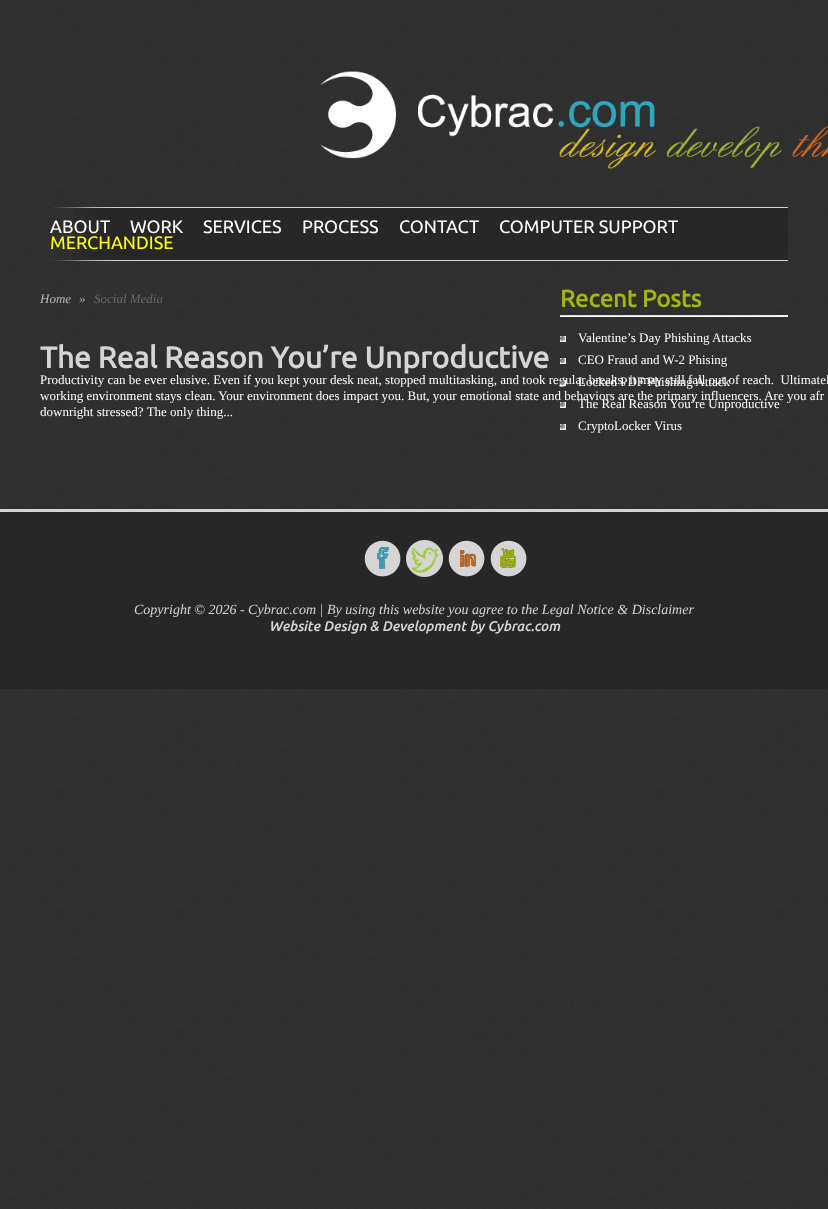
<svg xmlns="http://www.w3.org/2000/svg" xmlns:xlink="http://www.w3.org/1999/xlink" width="828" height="1209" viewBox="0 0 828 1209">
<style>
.cls-1{font:18px Ubuntu;fill:#ffffff}
.cls-2{font:18px Ubuntu;fill:#ffff00}
.cls-3{font:bold 24px Ubuntu;fill:#a2b60e}
.cls-4{font:13px Liberation Serif;fill:#ffffff}
.cls-5{font:italic 13px Liberation Serif;fill:#b6b6b6}
.cls-6{font:italic 13px Liberation Serif;fill:#686868}
.cls-7{font:bold 30px Ubuntu;fill:#d6d5d5}
.cls-8{font:italic 14px Liberation Serif;fill:#d6d5d5}
.cls-9{font:italic 500 14px Ubuntu;fill:#d6d5d5}
</style>
<rect width="100%" height="100%" fill="#ffffff"/>
<image xlink:href="image0.png" x="0" y="0" width="828" height="1209"/>
<image xlink:href="image1.png" x="320" y="71" width="508" height="98"/>
<image xlink:href="image2.png" x="73" y="207" width="715" height="53"/>
<image xlink:href="image3.png" x="51" y="207" width="737" height="1"/>
<image xlink:href="image4.png" x="51" y="260" width="737" height="1"/>
<image xlink:href="image5.png" x="560" y="315" width="228" height="2"/>
<image xlink:href="image6.png" x="560" y="336" width="6" height="6"/>
<image xlink:href="image6.png" x="560" y="358" width="6" height="6"/>
<image xlink:href="image6.png" x="560" y="424" width="6" height="6"/>
<rect fill="#272727" x="0" y="512" width="828" height="177"/>
<rect fill="#d6d5d5" x="0" y="509" width="828" height="3"/>
<image xlink:href="image7.png" x="364" y="540" width="37" height="37"/>
<image xlink:href="image8.png" x="406" y="540" width="37" height="37"/>
<image xlink:href="image9.png" x="448" y="540" width="37" height="37"/>
<image xlink:href="image10.png" x="490" y="540" width="37" height="37"/>
<text class="cls-1" x="50" y="233">ABOUT</text>
<text class="cls-1" x="130" y="233">WORK</text>
<text class="cls-1" x="203" y="233">SERVICES</text>
<text class="cls-1" x="302" y="233">PROCESS</text>
<text class="cls-1" x="399" y="233">CONTACT</text>
<text class="cls-1" x="499" y="233">COMPUTER SUPPORT</text>
<text class="cls-2" x="50" y="249">MERCHANDISE</text>
<text class="cls-3" x="560" y="307">Recent Posts</text>
<text class="cls-4"><tspan x="578" y="342">Valentine’s Day Phishing Attacks</tspan><tspan x="578" y="364">CEO Fraud and W-2 Phising</tspan></text>
<text class="cls-4"><tspan x="578" y="408">The Real Reason You’re Unproductive</tspan><tspan x="578" y="430">CryptoLocker Virus</tspan></text>
<text class="cls-5" x="40" y="303">Home</text>
<text class="cls-5" x="79" y="303">»</text>
<text class="cls-6" x="94" y="303">Social Media</text>
<text class="cls-7" x="40" y="368">The Real Reason You’re Unproductive</text>
<text class="cls-4" xml:space="preserve" x="40" y="384">Productivity can be ever elusive. Even if you kept your desk neat, stopped multitasking, and took regular breaks, it may still fall out of reach.  Ultimatel</text>
<text class="cls-4" x="578" y="386">Locked PDF Phishing Attack</text>
<image xlink:href="image6.png" x="560" y="380" width="6" height="6"/>
<text class="cls-4" x="40" y="400">working environment stays clean. Your environment does impact you. But, your emotional state and behaviors are the primary influencers. Are you afr</text>
<image xlink:href="image6.png" x="560" y="402" width="6" height="6"/>
<text class="cls-4" x="40" y="416">downright stressed? The only thing...</text>
<text class="cls-8" x="134" y="614">Copyright © 2026 - Cybrac.com | By using this website you agree to the Legal Notice &amp; Disclaimer</text>
<text class="cls-9" x="269" y="631">Website Design &amp; Development by Cybrac.com</text>
</svg>
